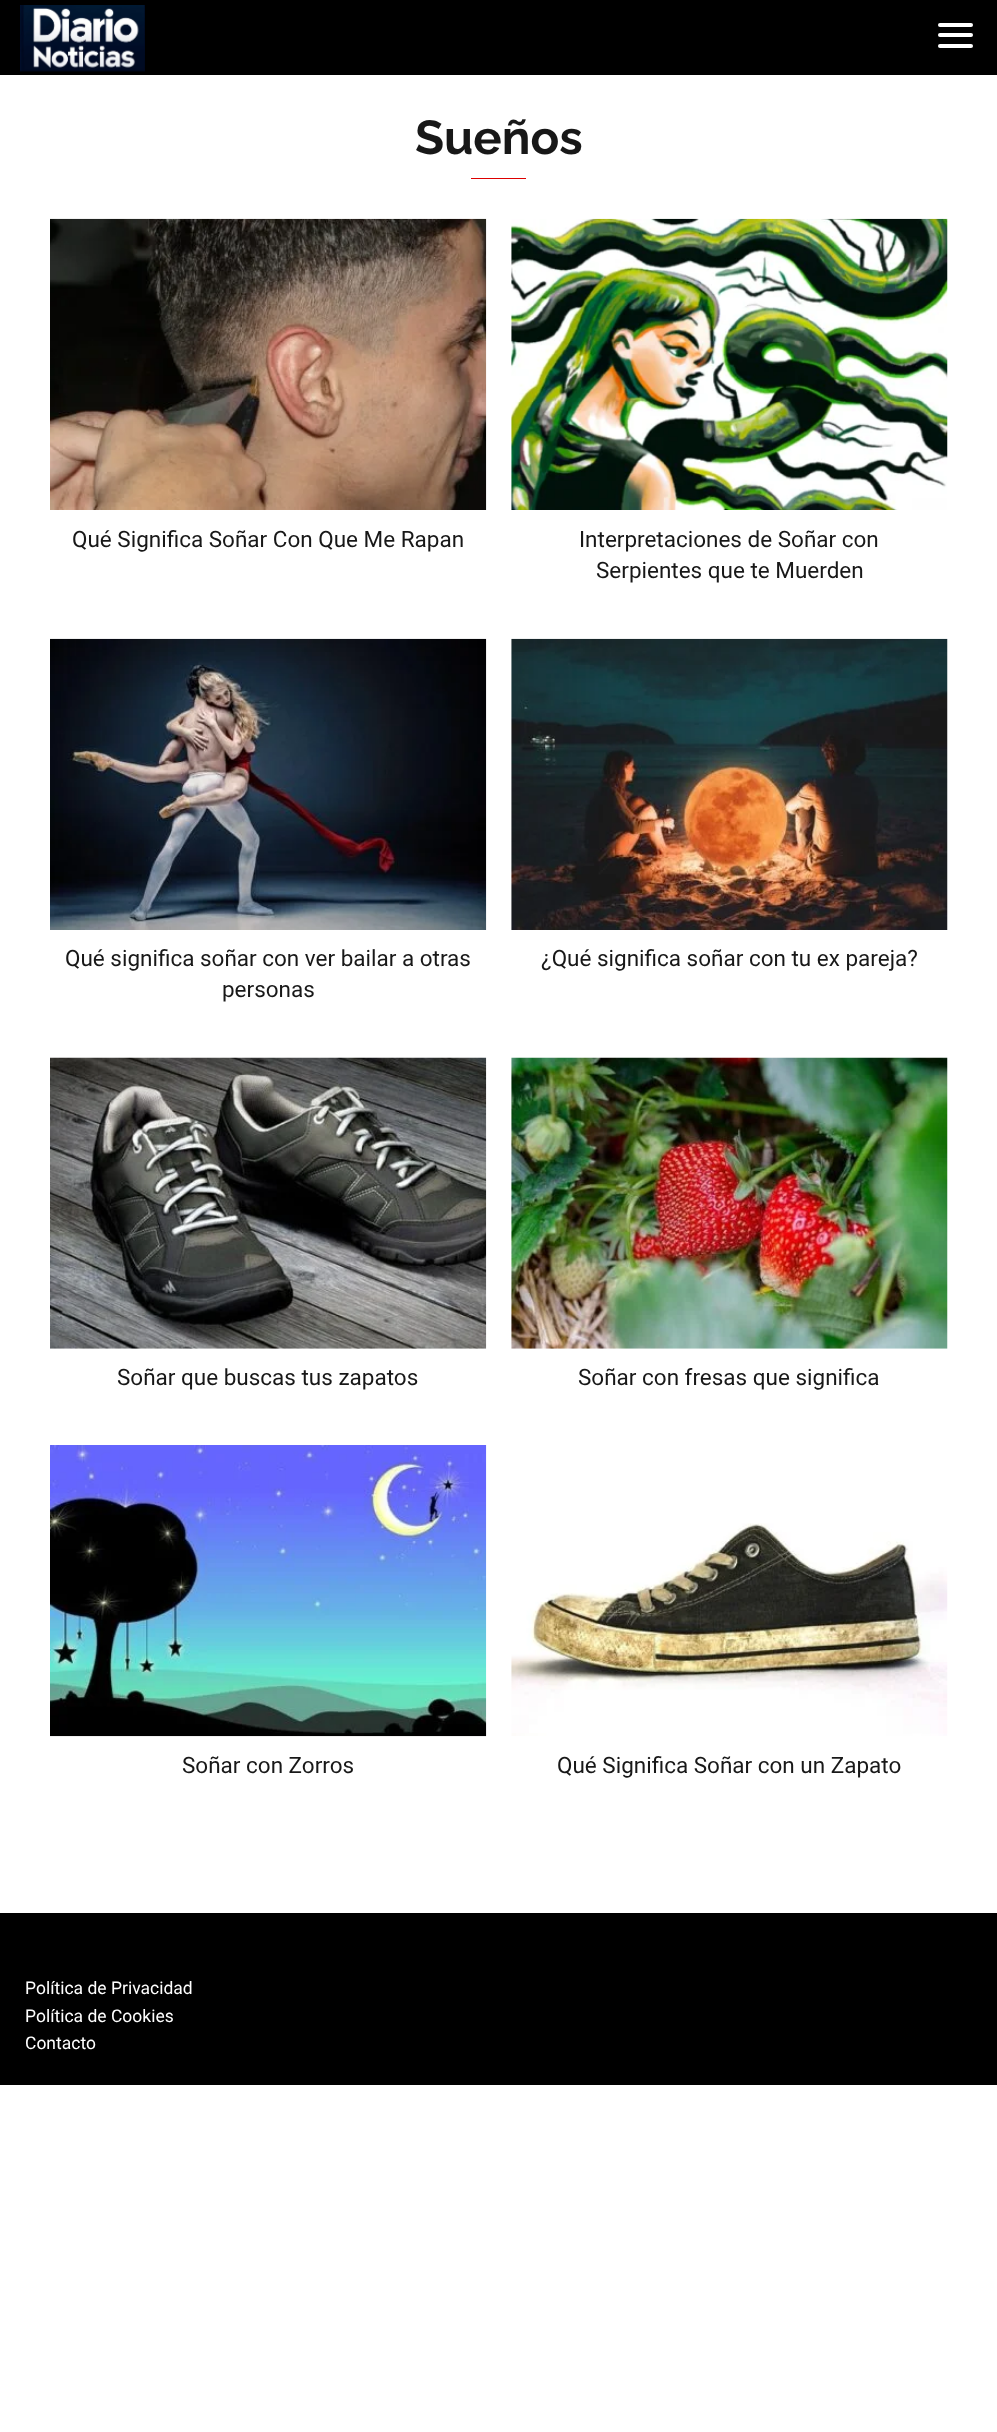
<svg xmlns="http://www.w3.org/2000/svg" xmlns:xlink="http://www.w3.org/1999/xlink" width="997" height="2432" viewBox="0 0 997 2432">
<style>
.cls-1{font:100 47.5px Raleway;fill:#181818}
.cls-2{font:22.5px Roboto;fill:#181818}
.cls-3{font:17.5px Roboto;fill:#ffffff}
</style>
<rect width="100%" height="100%" fill="#ffffff"/>
<rect fill="#000000" x="0" y="0" width="997" height="75"/>
<image xlink:href="image0.png" x="20" y="5" width="125" height="67"/>
<rect fill="#ffffff" x="938" y="23" width="35" height="4" rx="2"/>
<rect fill="#ffffff" x="938" y="33" width="35" height="4" rx="2"/>
<rect fill="#ffffff" x="938" y="44" width="35" height="4" rx="2"/>
<rect fill="#dd0000" x="471" y="178" width="55" height="1"/>
<image xlink:href="image1.png" x="50" y="218" width="437" height="292"/>
<image xlink:href="image2.png" x="511" y="218" width="437" height="292"/>
<image xlink:href="image3.png" x="50" y="638" width="437" height="292"/>
<image xlink:href="image4.png" x="511" y="638" width="437" height="292"/>
<image xlink:href="image5.png" x="50" y="1057" width="437" height="292"/>
<image xlink:href="image6.png" x="511" y="1057" width="437" height="292"/>
<image xlink:href="image7.png" x="50" y="1445" width="437" height="292"/>
<image xlink:href="image8.png" x="511" y="1523" width="437" height="213"/>
<rect fill="#000000" x="0" y="1913" width="997" height="172"/>
<text class="cls-1" x="415" y="154">Sueños</text>
<text class="cls-2" x="72" y="547">Qué Significa Soñar Con Que Me Rapan</text>
<text class="cls-2" x="579" y="547">Interpretaciones de Soñar con</text>
<text class="cls-2" x="596" y="578">Serpientes que te Muerden</text>
<text class="cls-2" x="65" y="966">Qué significa soñar con ver bailar a otras</text>
<text class="cls-2" x="222" y="997">personas</text>
<text class="cls-2" x="541" y="966">¿Qué significa soñar con tu ex pareja?</text>
<text class="cls-2" x="117" y="1385">Soñar que buscas tus zapatos</text>
<text class="cls-2" x="578" y="1385">Soñar con fresas que significa</text>
<text class="cls-2" x="182" y="1773">Soñar con Zorros</text>
<text class="cls-2" x="557" y="1773">Qué Significa Soñar con un Zapato</text>
<text class="cls-3"><tspan x="25" y="1994">Política de Privacidad</tspan><tspan x="25" y="2022">Política de Cookies</tspan><tspan x="25" y="2049">Contacto</tspan></text>
</svg>
